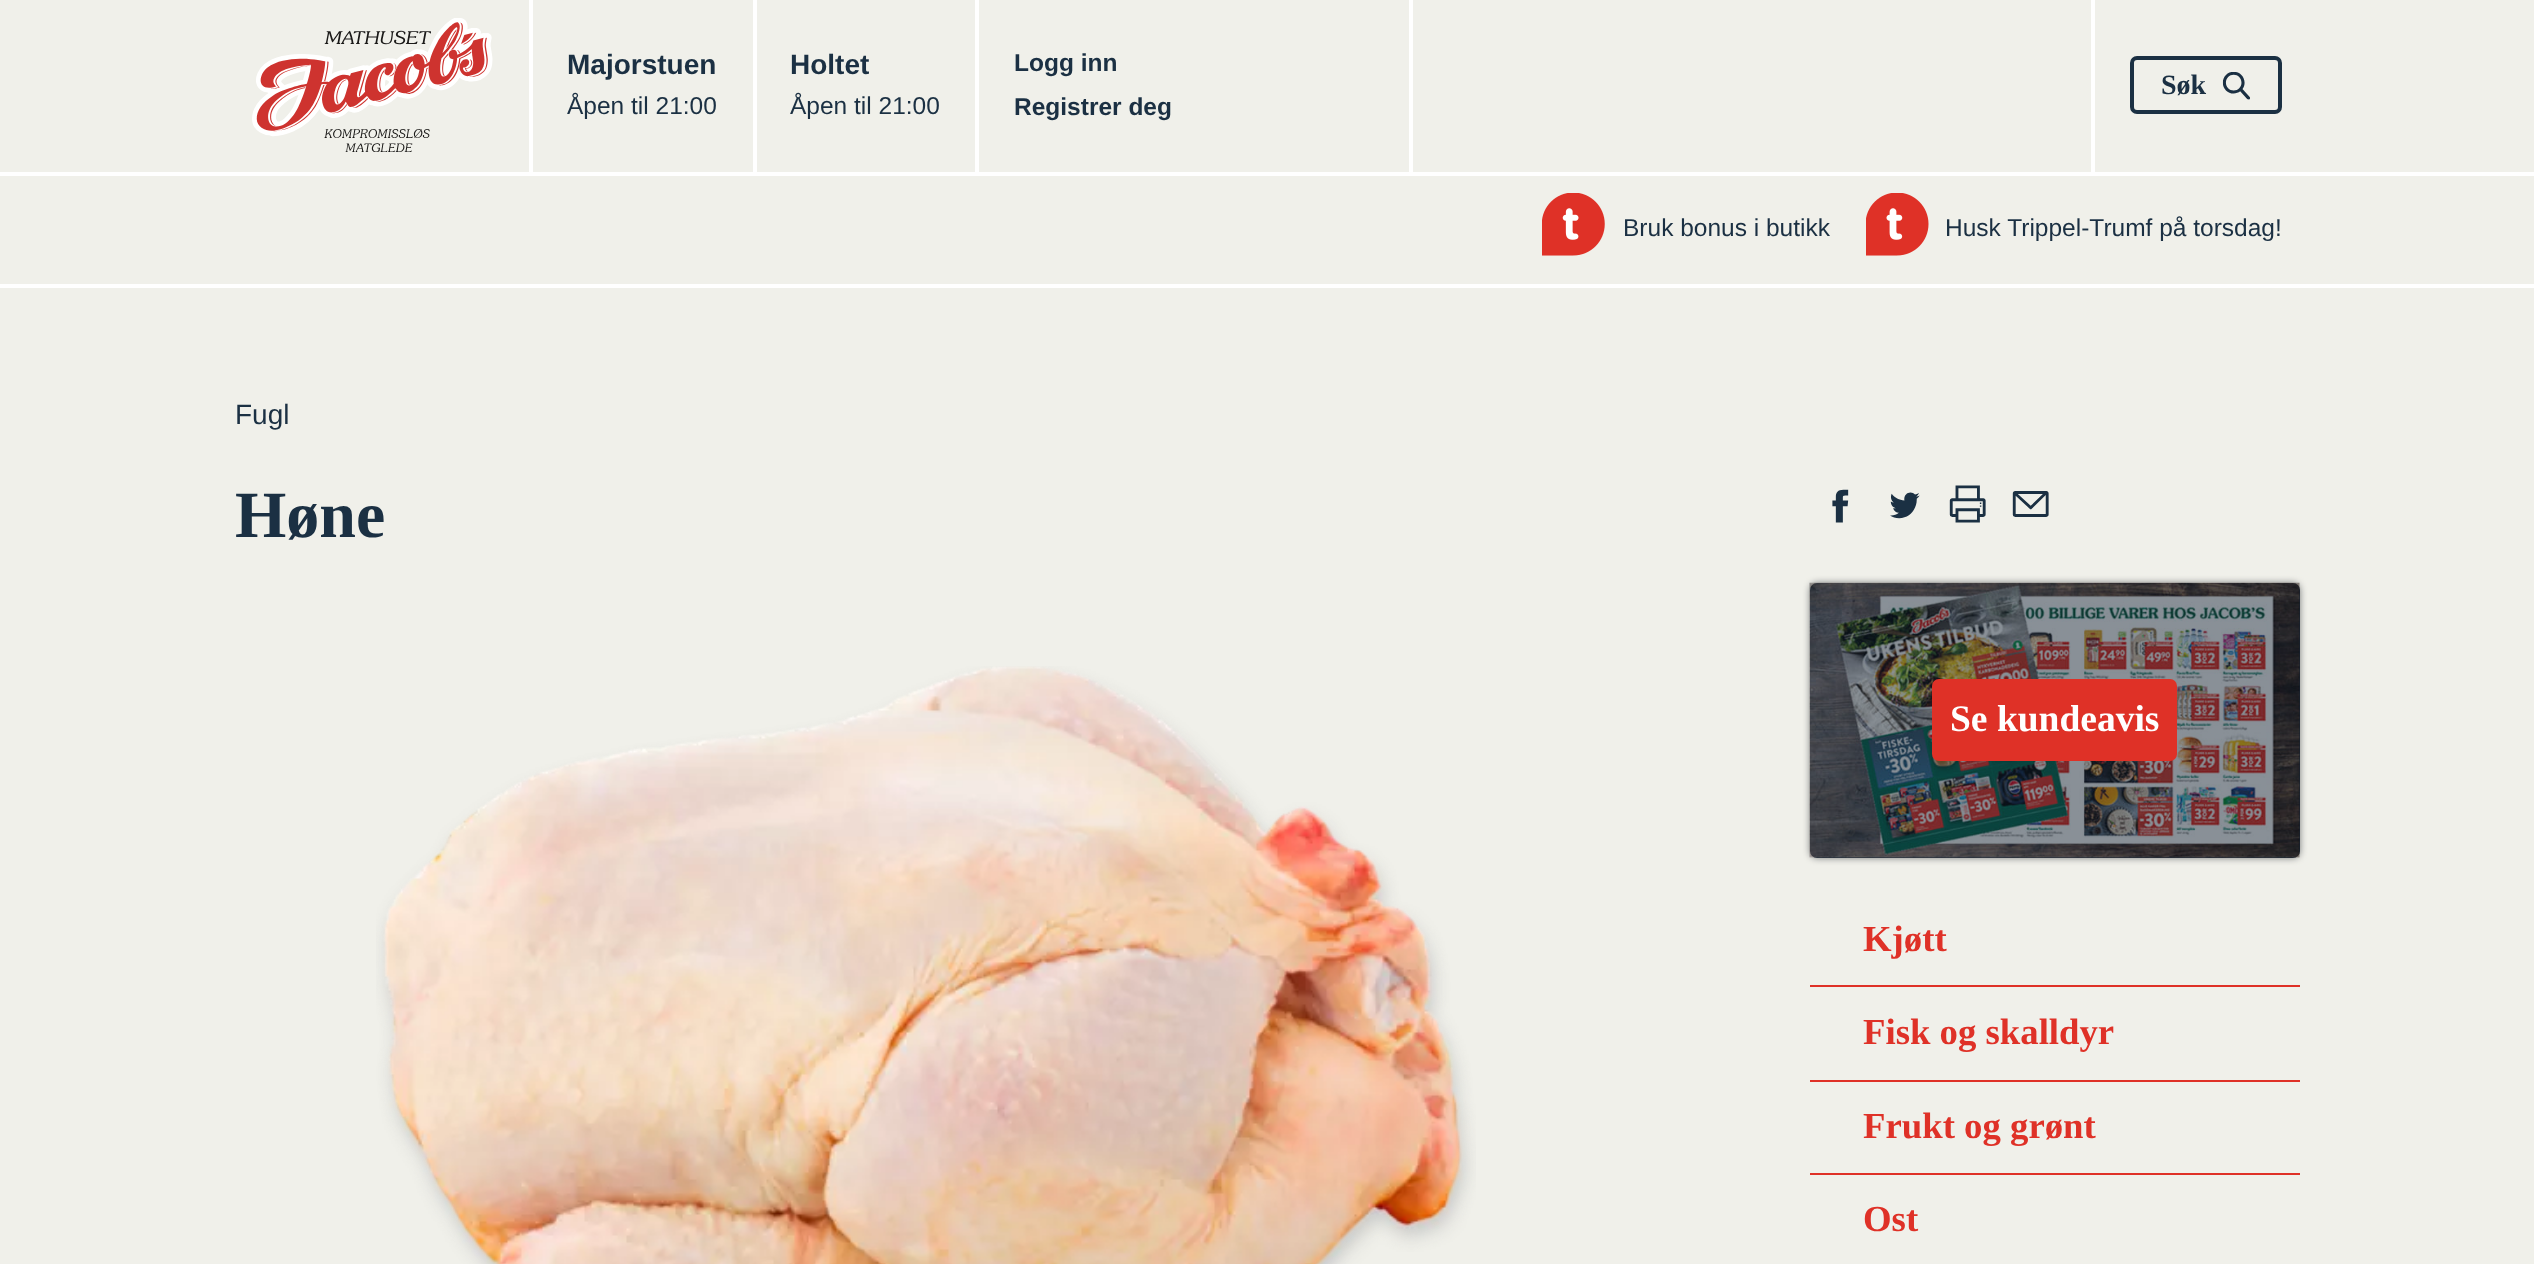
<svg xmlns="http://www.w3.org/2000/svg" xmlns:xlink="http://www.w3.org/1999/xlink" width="2534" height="1264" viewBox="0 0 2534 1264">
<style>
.cls-1{font:bold 28px Liberation Sans;fill:#1b3043}
.cls-2{font:24.5px Liberation Sans;fill:#1b3043}
.cls-3{font:bold 24.5px Liberation Sans;fill:#1b3043}
.cls-4{font:bold 28px Liberation Serif;fill:#1b3043}
.cls-5{font:28px Liberation Sans;fill:#1b3043}
.cls-6{font:bold 66px Liberation Serif;fill:#1b3043}
.cls-7{font:bold 37.5px Liberation Serif;fill:#ffffff}
.cls-8{font:bold 36.75px Liberation Serif;fill:#df3127}
</style>
<rect width="100%" height="100%" fill="#f0f0ea"/>
<rect fill="#ffffff" x="0" y="172" width="2534" height="4"/>
<rect fill="#ffffff" x="529" y="0" width="4" height="172"/>
<image xlink:href="image0.png" x="252" y="18" width="241" height="134"/>
<rect fill="#ffffff" x="753" y="0" width="4" height="172"/>
<rect fill="#ffffff" x="975" y="0" width="4" height="172"/>
<rect fill="#ffffff" x="1409" y="0" width="4" height="172"/>
<rect fill="#ffffff" x="2091" y="0" width="4" height="172"/>
<rect fill="none" stroke="#1b3043" stroke-width="4" x="2132" y="58" width="148" height="54" rx="5"/>
<image xlink:href="image1.png" x="2222" y="72" width="28" height="28"/>
<rect fill="#ffffff" x="0" y="284" width="2534" height="4"/>
<image xlink:href="image2.png" x="1542" y="193" width="63" height="63"/>
<image xlink:href="image3.png" x="1866" y="193" width="63" height="63"/>
<image xlink:href="image4.png" x="376" y="666" width="1100" height="598"/>
<image xlink:href="image5.png" x="1832" y="489" width="17" height="34"/>
<image xlink:href="image6.png" x="1890" y="492" width="30" height="27"/>
<image xlink:href="image7.png" x="1949" y="485" width="37" height="38"/>
<image xlink:href="image8.png" x="2012" y="491" width="37" height="26"/>
<rect fill="#02060d" fill-opacity="0.5" filter="blur(3.5px)" x="1810" y="583" width="490" height="275" rx="7"/>
<rect fill="#13202f" x="1810" y="583" width="490" height="275" rx="7"/>
<image xlink:href="image9.png" x="1809" y="582" width="491" height="276"/>
<rect fill="#df3127" x="1932" y="679" width="245" height="82" rx="7"/>
<rect fill="#df3127" x="1810" y="985" width="490" height="2"/>
<rect fill="#df3127" x="1810" y="1080" width="490" height="2"/>
<rect fill="#df3127" x="1810" y="1173" width="490" height="2"/>
<text class="cls-1" x="567" y="74">Majorstuen</text>
<text class="cls-2" x="567" y="114">Åpen til 21:00</text>
<text class="cls-1" x="790" y="74">Holtet</text>
<text class="cls-2" x="790" y="114">Åpen til 21:00</text>
<text class="cls-3"><tspan x="1014" y="71">Logg inn</tspan><tspan x="1014" y="115">Registrer deg</tspan></text>
<text class="cls-4" x="2161" y="94">Søk</text>
<text class="cls-2" x="1623" y="236">Bruk bonus i butikk</text>
<text class="cls-2" x="1945" y="236">Husk Trippel-Trumf på torsdag!</text>
<text class="cls-5" x="235" y="424">Fugl</text>
<text class="cls-6" x="235" y="537">Høne</text>
<text class="cls-7" x="1950" y="731">Se kundeavis</text>
<text class="cls-8" x="1863" y="951">Kjøtt</text>
<text class="cls-8" x="1863" y="1044">Fisk og skalldyr</text>
<text class="cls-8" x="1863" y="1138">Frukt og grønt</text>
<text class="cls-8" x="1863" y="1231">Ost</text>
</svg>
